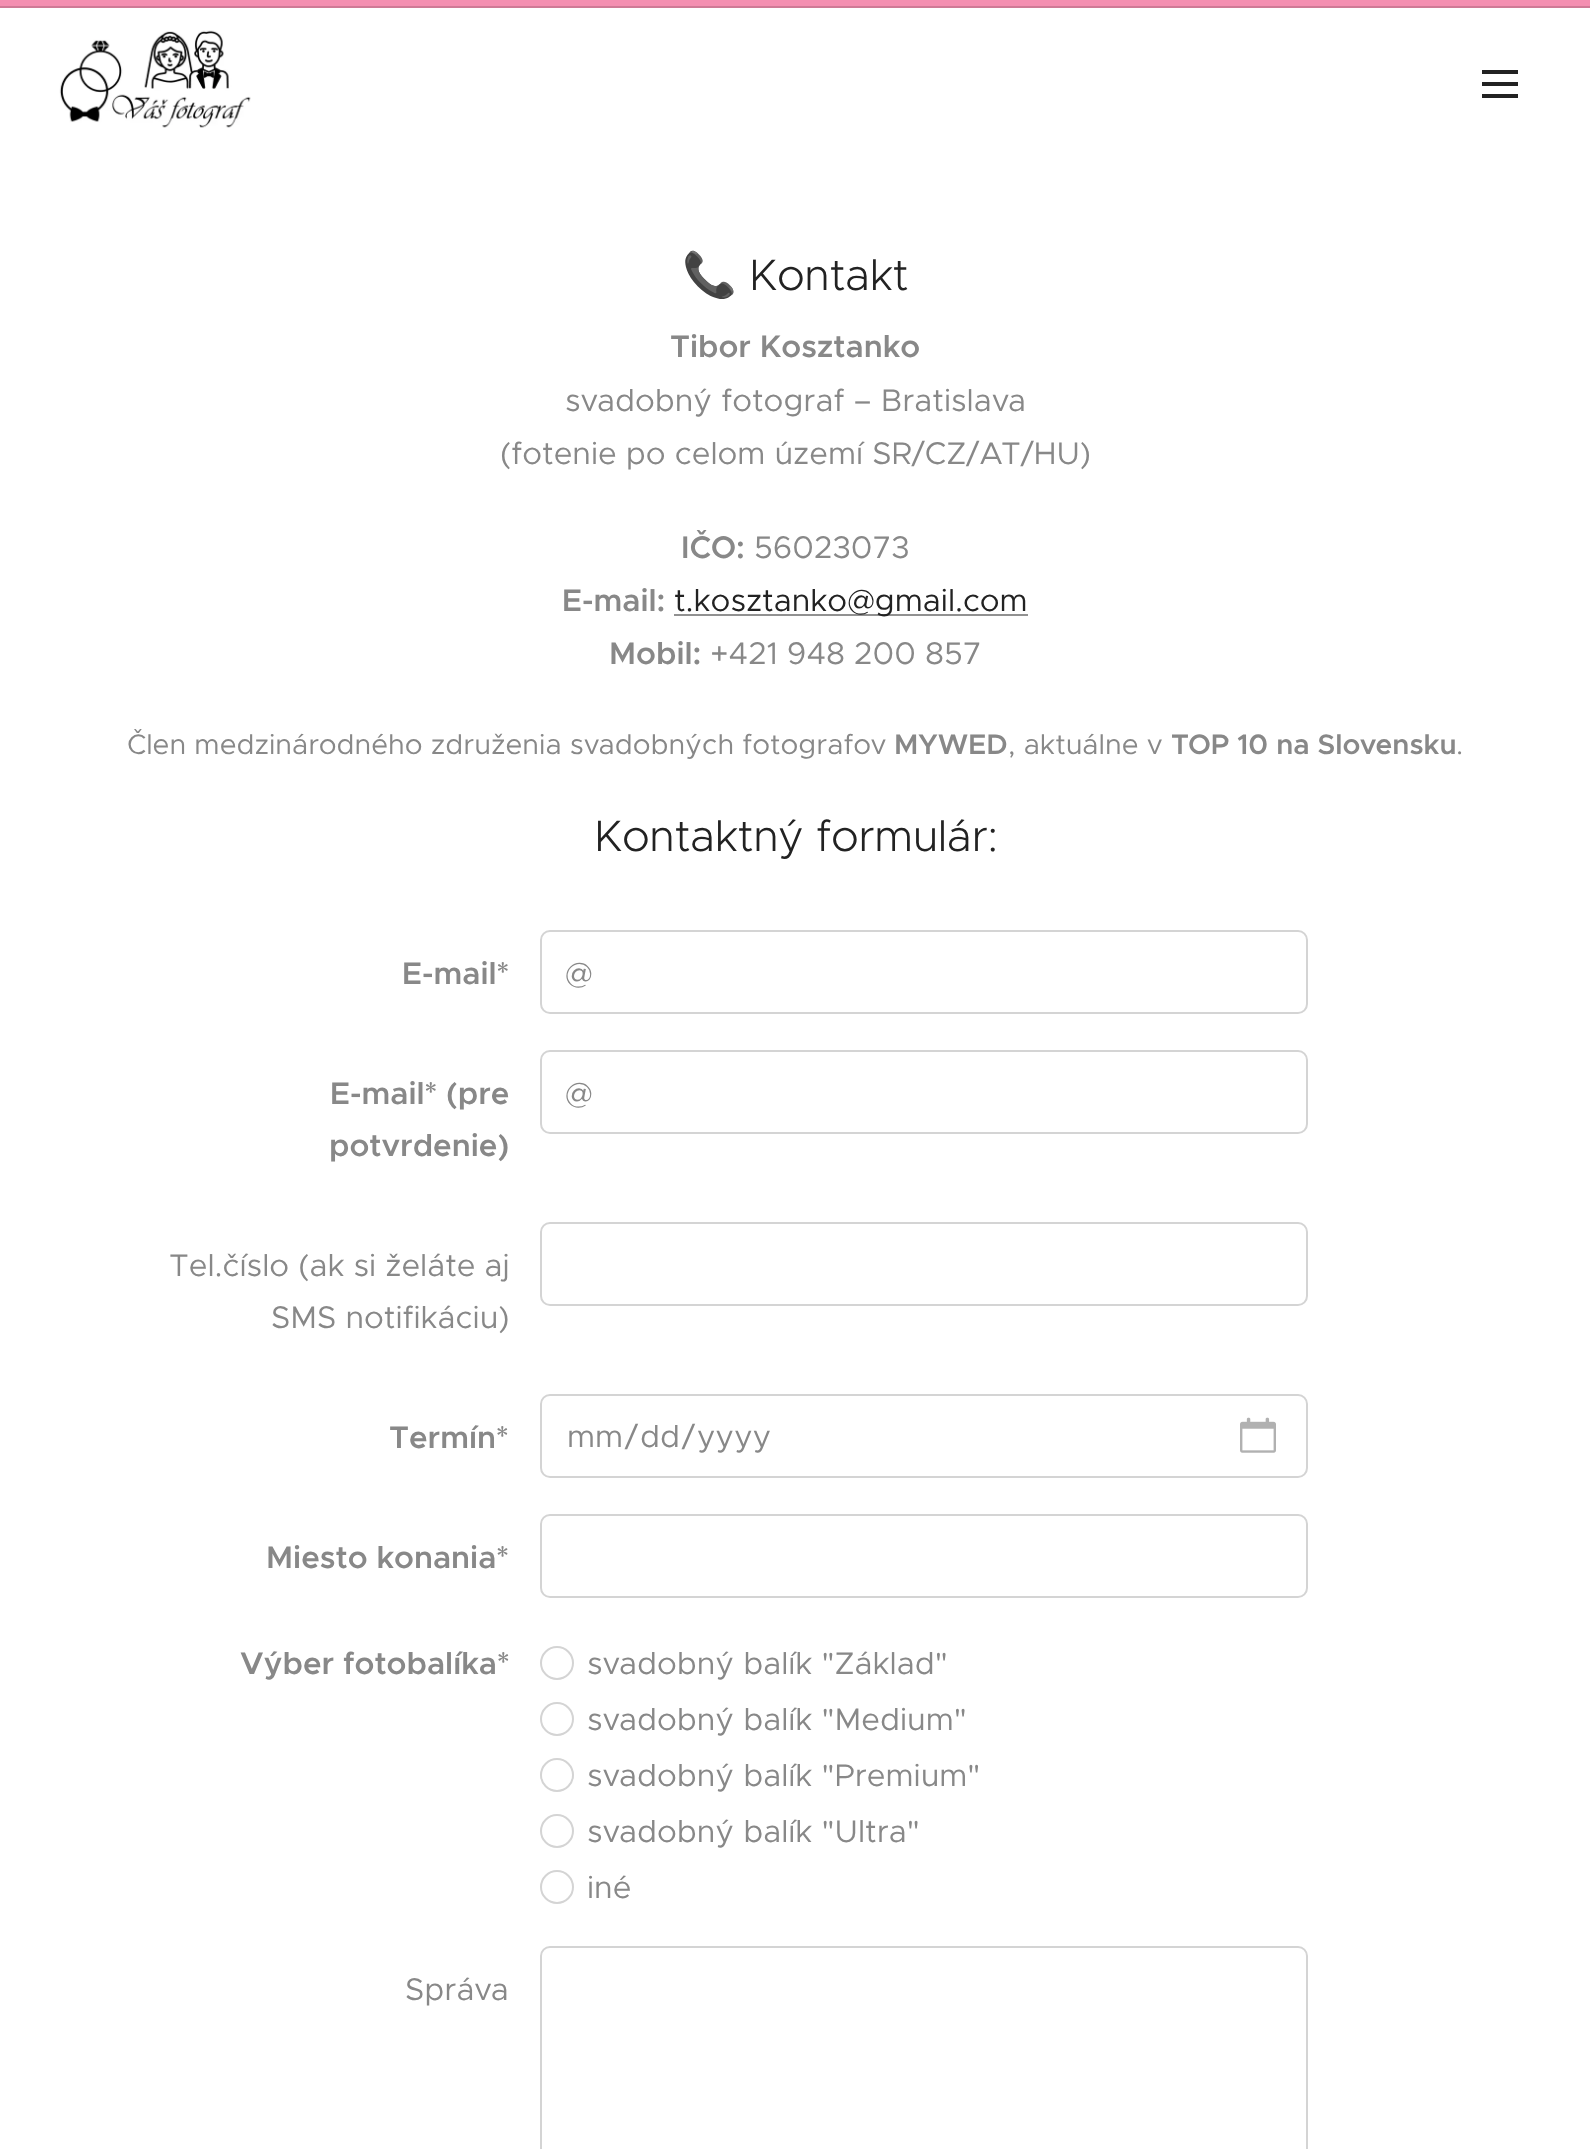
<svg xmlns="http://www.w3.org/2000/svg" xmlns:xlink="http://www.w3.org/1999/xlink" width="1590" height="2149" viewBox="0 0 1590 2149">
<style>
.cls-1{font:44px Noto Color Emoji;letter-spacing:-0.4px;fill:#222222}
.cls-2{font:300 44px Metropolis;letter-spacing:-0.4px;fill:#222222}
.cls-3{font:600 31.4px Metropolis;fill:#888888}
.cls-4{font:31.4px Metropolis;fill:#888888}
.cls-5{font:31.4px Metropolis;fill:#222222}
.cls-6{font:28.25px Metropolis;fill:#888888}
.cls-7{font:600 28.25px Metropolis;fill:#888888}
</style>
<rect width="100%" height="100%" fill="#ffffff"/>
<rect fill="#f48fb1" x="0" y="0" width="1590" height="6"/>
<rect fill="#cf7a96" x="0" y="6" width="1590" height="2"/>
<image xlink:href="image0.png" x="59" y="30" width="192" height="98"/>
<rect fill="#222222" x="1482" y="82" width="36" height="4"/>
<rect fill="#222222" x="1482" y="70" width="36" height="4"/>
<rect fill="#222222" x="1482" y="94" width="36" height="4"/>
<rect fill="#919191" x="674" y="614" width="354" height="2"/>
<rect fill="none" stroke="#d4d4d4" stroke-width="2" x="541" y="931" width="766" height="82" rx="9"/>
<rect fill="none" stroke="#d4d4d4" stroke-width="2" x="541" y="1051" width="766" height="82" rx="9"/>
<rect fill="none" stroke="#d4d4d4" stroke-width="2" x="541" y="1223" width="766" height="82" rx="9"/>
<rect fill="none" stroke="#d4d4d4" stroke-width="2" x="541" y="1395" width="766" height="82" rx="9"/>
<image xlink:href="image1.png" x="1240" y="1417" width="36" height="36"/>
<rect fill="none" stroke="#d4d4d4" stroke-width="2" x="541" y="1515" width="766" height="82" rx="9"/>
<circle fill="none" stroke="#d4d4d4" stroke-width="2" cx="557" cy="1663" r="16"/>
<circle fill="none" stroke="#d4d4d4" stroke-width="2" cx="557" cy="1719" r="16"/>
<circle fill="none" stroke="#d4d4d4" stroke-width="2" cx="557" cy="1775" r="16"/>
<circle fill="none" stroke="#d4d4d4" stroke-width="2" cx="557" cy="1831" r="16"/>
<circle fill="none" stroke="#d4d4d4" stroke-width="2" cx="557" cy="1887" r="16"/>
<rect fill="none" stroke="#d4d4d4" stroke-width="2" x="541" y="1947" width="766" height="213" rx="9"/>
<text class="cls-1" x="682" y="290">📞</text>
<text class="cls-2" x="749" y="290">Kontakt</text>
<text class="cls-3" x="670" y="357">Tibor Kosztanko</text>
<text class="cls-4" x="565" y="411">svadobný fotograf – Bratislava</text>
<text class="cls-4" x="500" y="464">(fotenie po celom území SR/CZ/AT/HU)</text>
<text class="cls-3" x="681" y="558">IČO:</text>
<text class="cls-4" x="754" y="558">56023073</text>
<text class="cls-3" x="562" y="611">E-mail:</text>
<text class="cls-5" x="674" y="611">t.kosztanko@gmail.com</text>
<text class="cls-3" x="609" y="664">Mobil:</text>
<text class="cls-4" x="710" y="664">+421 948 200 857</text>
<text class="cls-6" x="127" y="754">Člen medzinárodného združenia svadobných fotografov</text>
<text class="cls-7" x="894" y="754">MYWED</text>
<text class="cls-6" x="1008" y="754">, aktuálne v</text>
<text class="cls-7" x="1171" y="754">TOP 10 na Slovensku</text>
<text class="cls-6" x="1456" y="754">.</text>
<text class="cls-2" x="594" y="851">Kontaktný formulár:</text>
<text class="cls-3" x="402" y="984">E-mail*</text>
<text class="cls-4" x="565" y="984">@</text>
<text class="cls-3" x="330" y="1104">E-mail* (pre</text>
<text class="cls-3" x="329" y="1156">potvrdenie)</text>
<text class="cls-4" x="565" y="1104">@</text>
<text class="cls-4" x="169" y="1276">Tel.číslo (ak si želáte aj</text>
<text class="cls-4" x="271" y="1328">SMS notifikáciu)</text>
<text class="cls-3" x="389" y="1448">Termín*</text>
<text class="cls-4" x="567" y="1447">mm</text>
<text class="cls-4" x="625" y="1447">/</text>
<text class="cls-4" x="640" y="1447">dd</text>
<text class="cls-4" x="682" y="1447">/</text>
<text class="cls-4" x="697" y="1447">yyyy</text>
<text class="cls-3" x="266" y="1568">Miesto konania*</text>
<text class="cls-3" x="240" y="1674">Výber fotobalíka*</text>
<text class="cls-4"><tspan x="587" y="1674">svadobný balík "Základ"</tspan><tspan x="587" y="1730">svadobný balík "Medium"</tspan><tspan x="587" y="1786">svadobný balík "Premium"</tspan><tspan x="587" y="1842">svadobný balík "Ultra"</tspan><tspan x="587" y="1898">iné</tspan></text>
<text class="cls-4" x="405" y="2000">Správa</text>
</svg>
